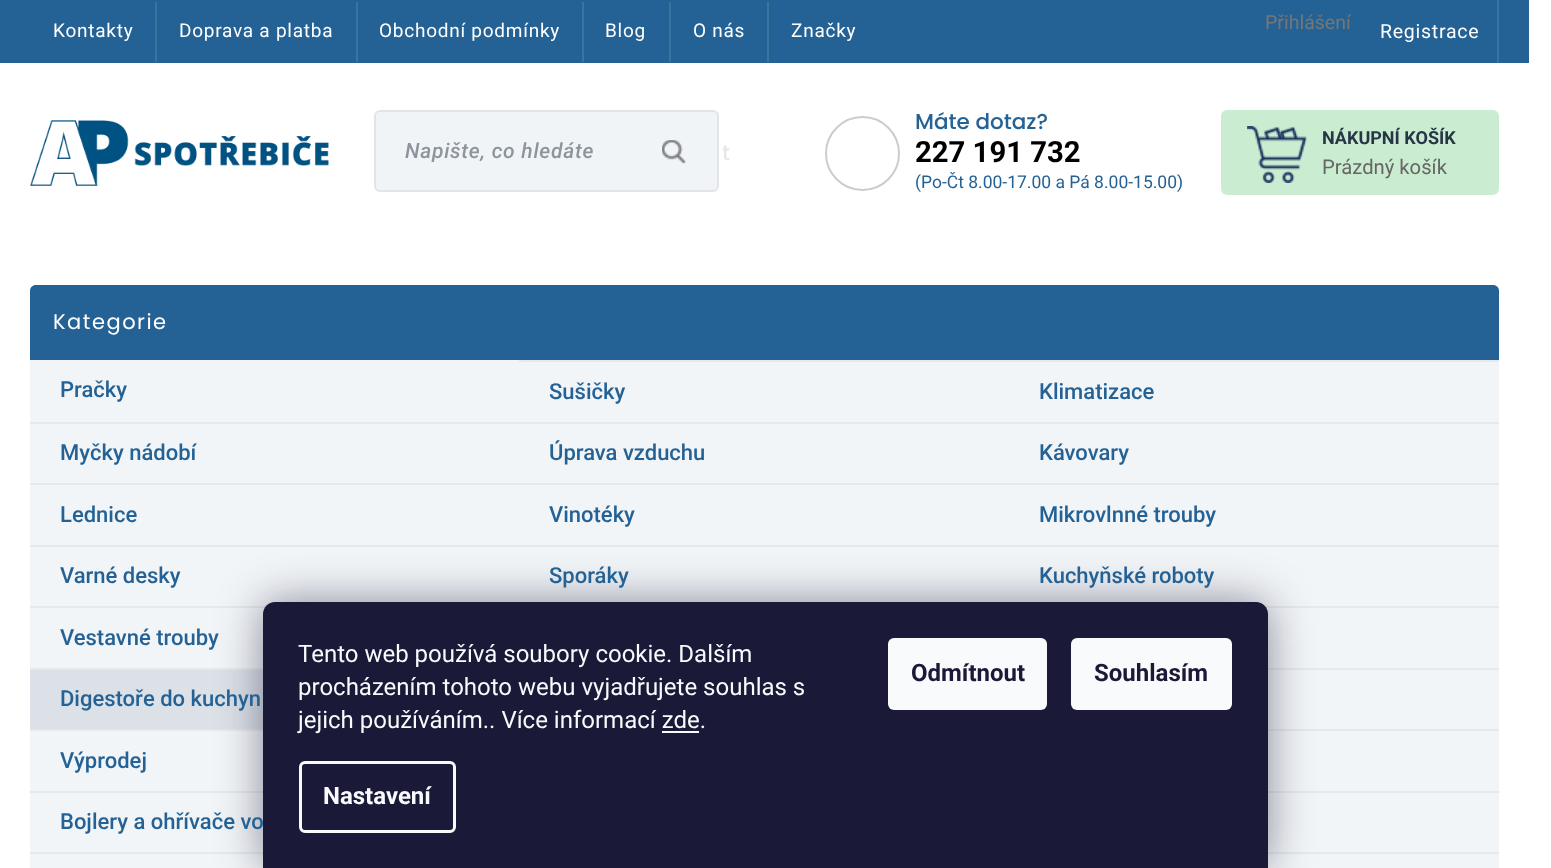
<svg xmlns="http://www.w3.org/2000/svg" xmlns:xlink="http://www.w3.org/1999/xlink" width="1551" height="868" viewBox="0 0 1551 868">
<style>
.cls-1{font:19px Roboto;letter-spacing:0.75px;fill:#ffffff}
.cls-2{font:19.5px Roboto;fill:#767676}
.cls-3{font:19.5px Roboto;letter-spacing:0.75px;fill:#ffffff}
.cls-4{font:500 21.5px Poppins;fill:#246295}
.cls-5{font:bold 29.25px Roboto;fill:#000000}
.cls-6{font:17.5px Roboto;fill:#246295}
.cls-7{font:italic 500 21px Roboto;letter-spacing:0.75px;fill:#8c959e}
.cls-8{font:500 21px Poppins;fill:#e5e7ea}
.cls-9{font:bold 18px Roboto;fill:#273646}
.cls-10{font:20.25px Roboto;fill:#666666}
.cls-11{font:21px Poppins;letter-spacing:1.5px;fill:#ffffff}
.cls-12{font:500 22px Roboto;fill:#246295}
.cls-13{font:24px Roboto;fill:#f8fafb}
.cls-14{font:bold 24px Roboto;fill:#f8fafb}
.cls-15{font:bold 24px Roboto;fill:#1a1937}
</style>
<defs>
<clipPath id="clip1"><rect x="405" y="138" width="246" height="24"/></clipPath>
</defs>
<rect width="100%" height="100%" fill="#ffffff"/>
<rect fill="#246295" x="0" y="0" width="1529" height="63"/>
<rect fill="#3a72a0" x="155" y="2" width="2" height="60"/>
<rect fill="#3a72a0" x="356" y="2" width="2" height="60"/>
<rect fill="#3a72a0" x="582" y="2" width="2" height="60"/>
<rect fill="#3a72a0" x="669" y="2" width="2" height="60"/>
<rect fill="#3a72a0" x="767" y="2" width="2" height="60"/>
<rect fill="#3a72a0" x="1497" y="0" width="2" height="63"/>
<circle fill="none" stroke="#cccccc" stroke-width="2" cx="862.5" cy="153.5" r="36.5"/>
<image xlink:href="image0.png" x="30" y="120" width="299" height="66"/>
<rect fill="#f1f4f7" stroke="#e4e4e6" stroke-width="2" x="375" y="111" width="343" height="80" rx="5"/>
<image xlink:href="image1.png" x="662" y="140" width="24" height="24"/>
<rect fill="#caedd1" x="1221" y="110" width="278" height="85" rx="6"/>
<image xlink:href="image2.png" x="1247" y="126" width="60" height="57"/>
<path fill="#246295" d="M36 285H1493C1496.5 285 1499 287.5 1499 291V360H30V291C30 287.5 32.5 285 36 285Z"/>
<rect fill="#f2f5f7" x="30" y="360" width="1469" height="508"/>
<rect fill="#e6e9ea" x="519" y="360" width="980" height="2"/>
<rect fill="#e6e9ea" x="30" y="422" width="1469" height="2"/>
<rect fill="#e6e9ea" x="30" y="483" width="1469" height="2"/>
<rect fill="#e6e9ea" x="30" y="545" width="1469" height="2"/>
<rect fill="#e6e9ea" x="1264" y="606" width="235" height="2"/>
<rect fill="#e6e9ea" x="30" y="606" width="237" height="2"/>
<rect fill="#e6e9ea" x="1268" y="668" width="231" height="2"/>
<rect fill="#dce1e7" x="30" y="670" width="233" height="59"/>
<rect fill="#e6e9ea" x="30" y="668" width="233" height="2"/>
<rect fill="#e6e9ea" x="1268" y="729" width="231" height="2"/>
<rect fill="#e6e9ea" x="30" y="729" width="233" height="2"/>
<rect fill="#e6e9ea" x="1268" y="791" width="231" height="2"/>
<rect fill="#e6e9ea" x="30" y="791" width="233" height="2"/>
<rect fill="#e6e9ea" x="30" y="852" width="233" height="2"/>
<rect fill="#e6e9ea" x="1268" y="852" width="231" height="2"/>
<rect fill="#1b1939" fill-opacity="0.5" filter="blur(22.5px)" x="263" y="602" width="1005" height="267" rx="12"/>
<text class="cls-1" x="53" y="37">Kontakty</text>
<text class="cls-1" x="179" y="37">Doprava a platba</text>
<text class="cls-1" x="379" y="37">Obchodní podmínky</text>
<text class="cls-1" x="605" y="37">Blog</text>
<text class="cls-1" x="693" y="37">O nás</text>
<text class="cls-1" x="791" y="37">Značky</text>
<text class="cls-2" x="1265" y="29">Přihlášení</text>
<text class="cls-3" x="1380" y="38">Registrace</text>
<text class="cls-4" x="915" y="129">Máte dotaz?</text>
<text class="cls-5" x="915" y="162">227 191 732</text>
<text class="cls-6" x="915" y="188">(Po-Čt 8.00-17.00 a Pá 8.00-15.00)</text>
<g clip-path="url(#clip1)">
<text class="cls-7" x="405" y="158">Napište, co hledáte</text>
</g>
<text class="cls-8" x="722" y="160">t</text>
<text class="cls-9" x="1322" y="144">NÁKUPNÍ KOŠÍK</text>
<text class="cls-10" x="1322" y="174">Prázdný košík</text>
<text class="cls-11" x="53" y="329">Kategorie</text>
<text class="cls-12" x="60" y="397">Pračky</text>
<text class="cls-12" x="549" y="399">Sušičky</text>
<text class="cls-12" x="1039" y="399">Klimatizace</text>
<text class="cls-12" x="60" y="460">Myčky nádobí</text>
<text class="cls-12" x="549" y="460">Úprava vzduchu</text>
<text class="cls-12" x="1039" y="460">Kávovary</text>
<text class="cls-12" x="60" y="522">Lednice</text>
<text class="cls-12" x="549" y="522">Vinotéky</text>
<text class="cls-12" x="1039" y="522">Mikrovlnné trouby</text>
<text class="cls-12" x="60" y="583">Varné desky</text>
<text class="cls-12" x="549" y="583">Sporáky</text>
<text class="cls-12" x="1039" y="583">Kuchyňské roboty</text>
<text class="cls-12" x="60" y="645">Vestavné trouby</text>
<text class="cls-12" x="60" y="706">Digestoře do kuchyn</text>
<text class="cls-12" x="60" y="768">Výprodej</text>
<text class="cls-12" x="60" y="829">Bojlery a ohřívače vo</text>
<path fill="#1a1937" d="M275 602H1256C1262.5 602 1268 607.5 1268 614V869H263V614C263 607.5 268.5 602 275 602Z"/>
<text class="cls-13"><tspan x="298" y="662">Tento web používá soubory cookie. Dalším</tspan><tspan x="298" y="695">procházením tohoto webu vyjadřujete souhlas s</tspan><tspan x="298" y="728">jejich používáním.. Více informací zde.</tspan></text>
<rect fill="#f8fafb" x="662" y="731" width="37" height="2"/>
<rect fill="none" stroke="#f8fafb" stroke-width="3" x="300.5" y="762.5" width="154" height="69" rx="4.5"/>
<text class="cls-14" x="323" y="804">Nastavení</text>
<rect fill="#f8fafb" x="888" y="638" width="159" height="72" rx="6"/>
<text class="cls-15" x="911" y="681">Odmítnout</text>
<rect fill="#f8fafb" x="1071" y="638" width="161" height="72" rx="6"/>
<text class="cls-15" x="1094" y="681">Souhlasím</text>
</svg>
